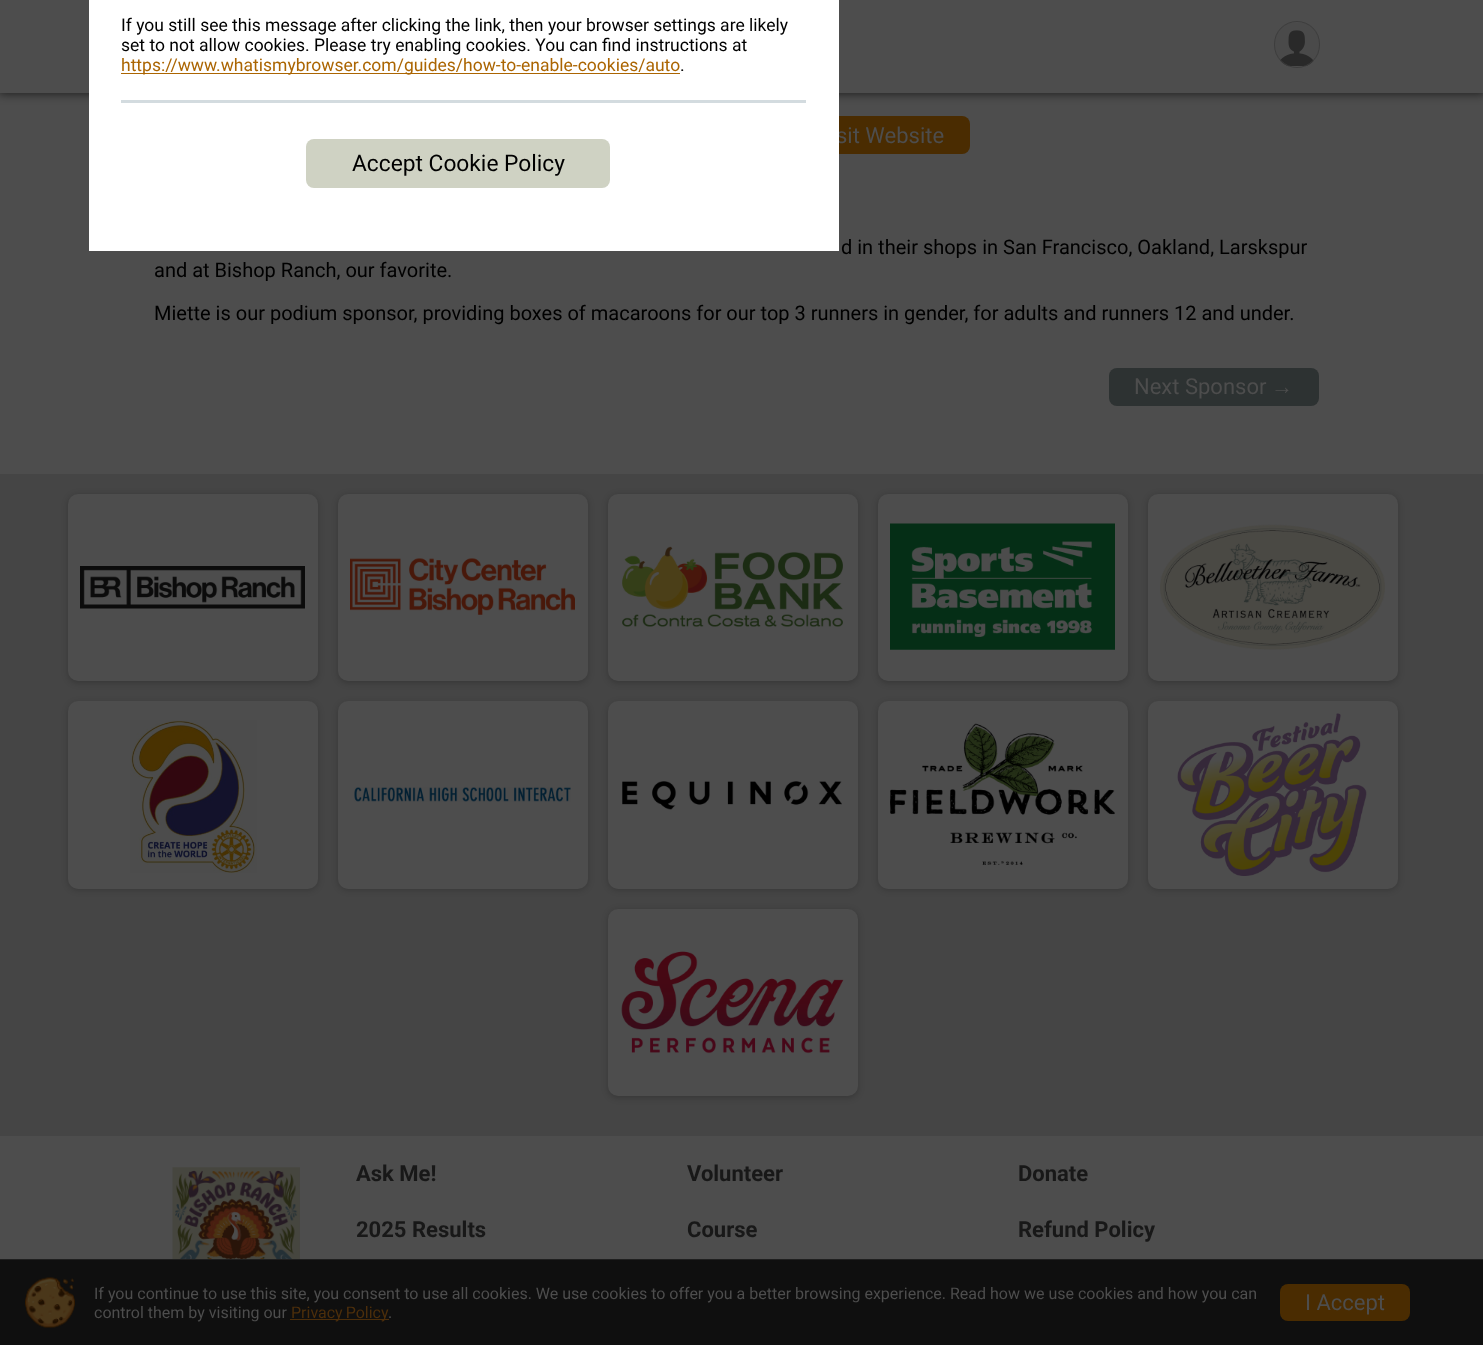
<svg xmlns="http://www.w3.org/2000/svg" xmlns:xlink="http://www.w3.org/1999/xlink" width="1483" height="1345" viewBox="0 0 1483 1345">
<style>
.cls-1{font:22px Roboto;fill:#4d4d4d}
.cls-2{font:22.75px Roboto;fill:#000000}
.cls-3{font:17.5px Roboto;fill:#000000}
.cls-4{font:17.5px Roboto;fill:#ab6502}
.cls-5{font:20px Roboto;fill:#000000}
.cls-6{font:22px Liberation Sans;fill:#4d4d4d}
.cls-7{font:bold 22px Roboto;fill:#181818}
.cls-8{font:16px Roboto;fill:#4d4d4d}
.cls-9{font:16px Roboto;fill:#4c2e0b}
</style>
<rect width="100%" height="100%" fill="#4d4d4d"/>
<rect fill="#000000" fill-opacity="0.6" filter="blur(5px)" x="-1" y="-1" width="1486" height="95"/>
<rect fill="#4d4d4d" x="0" y="0" width="1483" height="93"/>
<image xlink:href="image0.png" x="1275" y="23" width="44" height="43"/>
<rect fill="none" stroke="#3d3d3d" x="1274.5" y="21.5" width="45" height="46" rx="22.5"/>
<rect fill="#4a2c01" x="793" y="116" width="177" height="38" rx="8"/>
<rect fill="#2d3232" x="1109" y="368" width="210" height="38" rx="8"/>
<rect fill="#454545" x="0" y="474" width="1483" height="662"/>
<rect fill="#000000" fill-opacity="0.2" filter="blur(3px)" x="68" y="495" width="250" height="188" rx="10"/>
<rect fill="#4d4d4d" x="68" y="494" width="250" height="187" rx="10"/>
<image xlink:href="image1.png" x="80" y="566" width="225" height="43"/>
<rect fill="#000000" fill-opacity="0.2" filter="blur(3px)" x="338" y="495" width="250" height="188" rx="10"/>
<rect fill="#4d4d4d" x="338" y="494" width="250" height="187" rx="10"/>
<image xlink:href="image2.png" x="350" y="558" width="225" height="57"/>
<rect fill="#000000" fill-opacity="0.2" filter="blur(3px)" x="608" y="495" width="250" height="188" rx="10"/>
<rect fill="#4d4d4d" x="608" y="494" width="250" height="187" rx="10"/>
<image xlink:href="image3.png" x="622" y="546" width="221" height="81"/>
<rect fill="#000000" fill-opacity="0.2" filter="blur(3px)" x="878" y="495" width="250" height="188" rx="10"/>
<rect fill="#4d4d4d" x="878" y="494" width="250" height="187" rx="10"/>
<image xlink:href="image4.png" x="890" y="523" width="225" height="127"/>
<rect fill="#000000" fill-opacity="0.2" filter="blur(3px)" x="1148" y="495" width="250" height="188" rx="10"/>
<rect fill="#4d4d4d" x="1148" y="494" width="250" height="187" rx="10"/>
<image xlink:href="image5.png" x="1160" y="524" width="225" height="126"/>
<rect fill="#000000" fill-opacity="0.2" filter="blur(3px)" x="68" y="703" width="250" height="187" rx="10"/>
<rect fill="#4d4d4d" x="68" y="701" width="250" height="188" rx="10"/>
<image xlink:href="image6.png" x="130" y="720" width="127" height="153"/>
<rect fill="#000000" fill-opacity="0.2" filter="blur(3px)" x="338" y="703" width="250" height="187" rx="10"/>
<rect fill="#4d4d4d" x="338" y="701" width="250" height="188" rx="10"/>
<image xlink:href="image7.png" x="354" y="787" width="217" height="15"/>
<rect fill="#000000" fill-opacity="0.2" filter="blur(3px)" x="608" y="703" width="250" height="187" rx="10"/>
<rect fill="#4d4d4d" x="608" y="701" width="250" height="188" rx="10"/>
<image xlink:href="image8.png" x="622" y="781" width="220" height="29"/>
<rect fill="#000000" fill-opacity="0.2" filter="blur(3px)" x="878" y="703" width="250" height="187" rx="10"/>
<rect fill="#4d4d4d" x="878" y="701" width="250" height="188" rx="10"/>
<image xlink:href="image9.png" x="890" y="723" width="225" height="142"/>
<rect fill="#000000" fill-opacity="0.2" filter="blur(3px)" x="1148" y="703" width="250" height="187" rx="10"/>
<rect fill="#4d4d4d" x="1148" y="701" width="250" height="188" rx="10"/>
<image xlink:href="image10.png" x="1177" y="713" width="190" height="163"/>
<rect fill="#000000" fill-opacity="0.2" filter="blur(3px)" x="608" y="910" width="250" height="188" rx="10"/>
<rect fill="#4d4d4d" x="608" y="909" width="250" height="187" rx="10"/>
<image xlink:href="image11.png" x="621" y="951" width="223" height="103"/>
<image xlink:href="image12.png" x="172" y="1167" width="128" height="92"/>
<rect fill="#0f0f0f" x="0" y="1260" width="1483" height="85"/>
<rect fill="#1f1f1f" x="0" y="1259" width="1483" height="1"/>
<image xlink:href="image13.png" x="25" y="1277" width="50" height="51"/>
<rect fill="#4c2e0b" x="290" y="1319" width="99" height="1"/>
<rect fill="#4a2c01" x="1280" y="1284" width="130" height="37" rx="8"/>
<text class="cls-1" x="836" y="143">sit Website</text>
<rect fill="none" stroke="#ffffff" x="89.5" y="-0.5" width="749" height="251"/>
<rect fill="#ffffff" x="90" y="0" width="748" height="250"/>
<rect fill="#d3dbdf" x="121" y="100" width="685" height="3"/>
<rect fill="#cfd2c3" x="306" y="139" width="304" height="49" rx="8"/>
<text class="cls-2" x="352" y="171">Accept Cookie Policy</text>
<text class="cls-3" x="680" y="71">.</text>
<rect fill="#ab6502" x="121" y="73" width="559" height="1"/>
<text class="cls-4" x="121" y="71">https://www.whatismybrowser.com/guides/how-to-enable-cookies/auto</text>
<text class="cls-3" x="121" y="51">set to not allow cookies. Please try enabling cookies. You can find instructions at</text>
<text class="cls-3" x="121" y="31">If you still see this message after clicking the link, then your browser settings are likely</text>
<text class="cls-5" x="841" y="254">d in their shops in San Francisco, Oakland, Larskspur</text>
<text class="cls-5" x="154" y="277">and at Bishop Ranch, our favorite.</text>
<text class="cls-5" x="154" y="320">Miette is our podium sponsor, providing boxes of macaroons for our top 3 runners in gender, for adults and runners 12 and under.</text>
<text class="cls-1" x="1134" y="394">Next Sponsor</text>
<text class="cls-6" x="1271" y="394">→</text>
<text class="cls-7" x="356" y="1181">Ask Me!</text>
<text class="cls-7" x="687" y="1181">Volunteer</text>
<text class="cls-7" x="1018" y="1181">Donate</text>
<text class="cls-7" x="356" y="1237">2025 Results</text>
<text class="cls-7" x="687" y="1237">Course</text>
<text class="cls-7" x="1018" y="1237">Refund Policy</text>
<text class="cls-8"><tspan x="94" y="1299">If you continue to use this site, you consent to use all cookies. We use cookies to offer you a better browsing experience. Read how we use cookies and how you can</tspan><tspan x="94" y="1318">control them by visiting our</tspan></text>
<text class="cls-9" x="291" y="1318" word-spacing="-1">Privacy Policy</text>
<text class="cls-8" x="388" y="1318">.</text>
<text class="cls-1" x="1305" y="1310">I Accept</text>
</svg>
